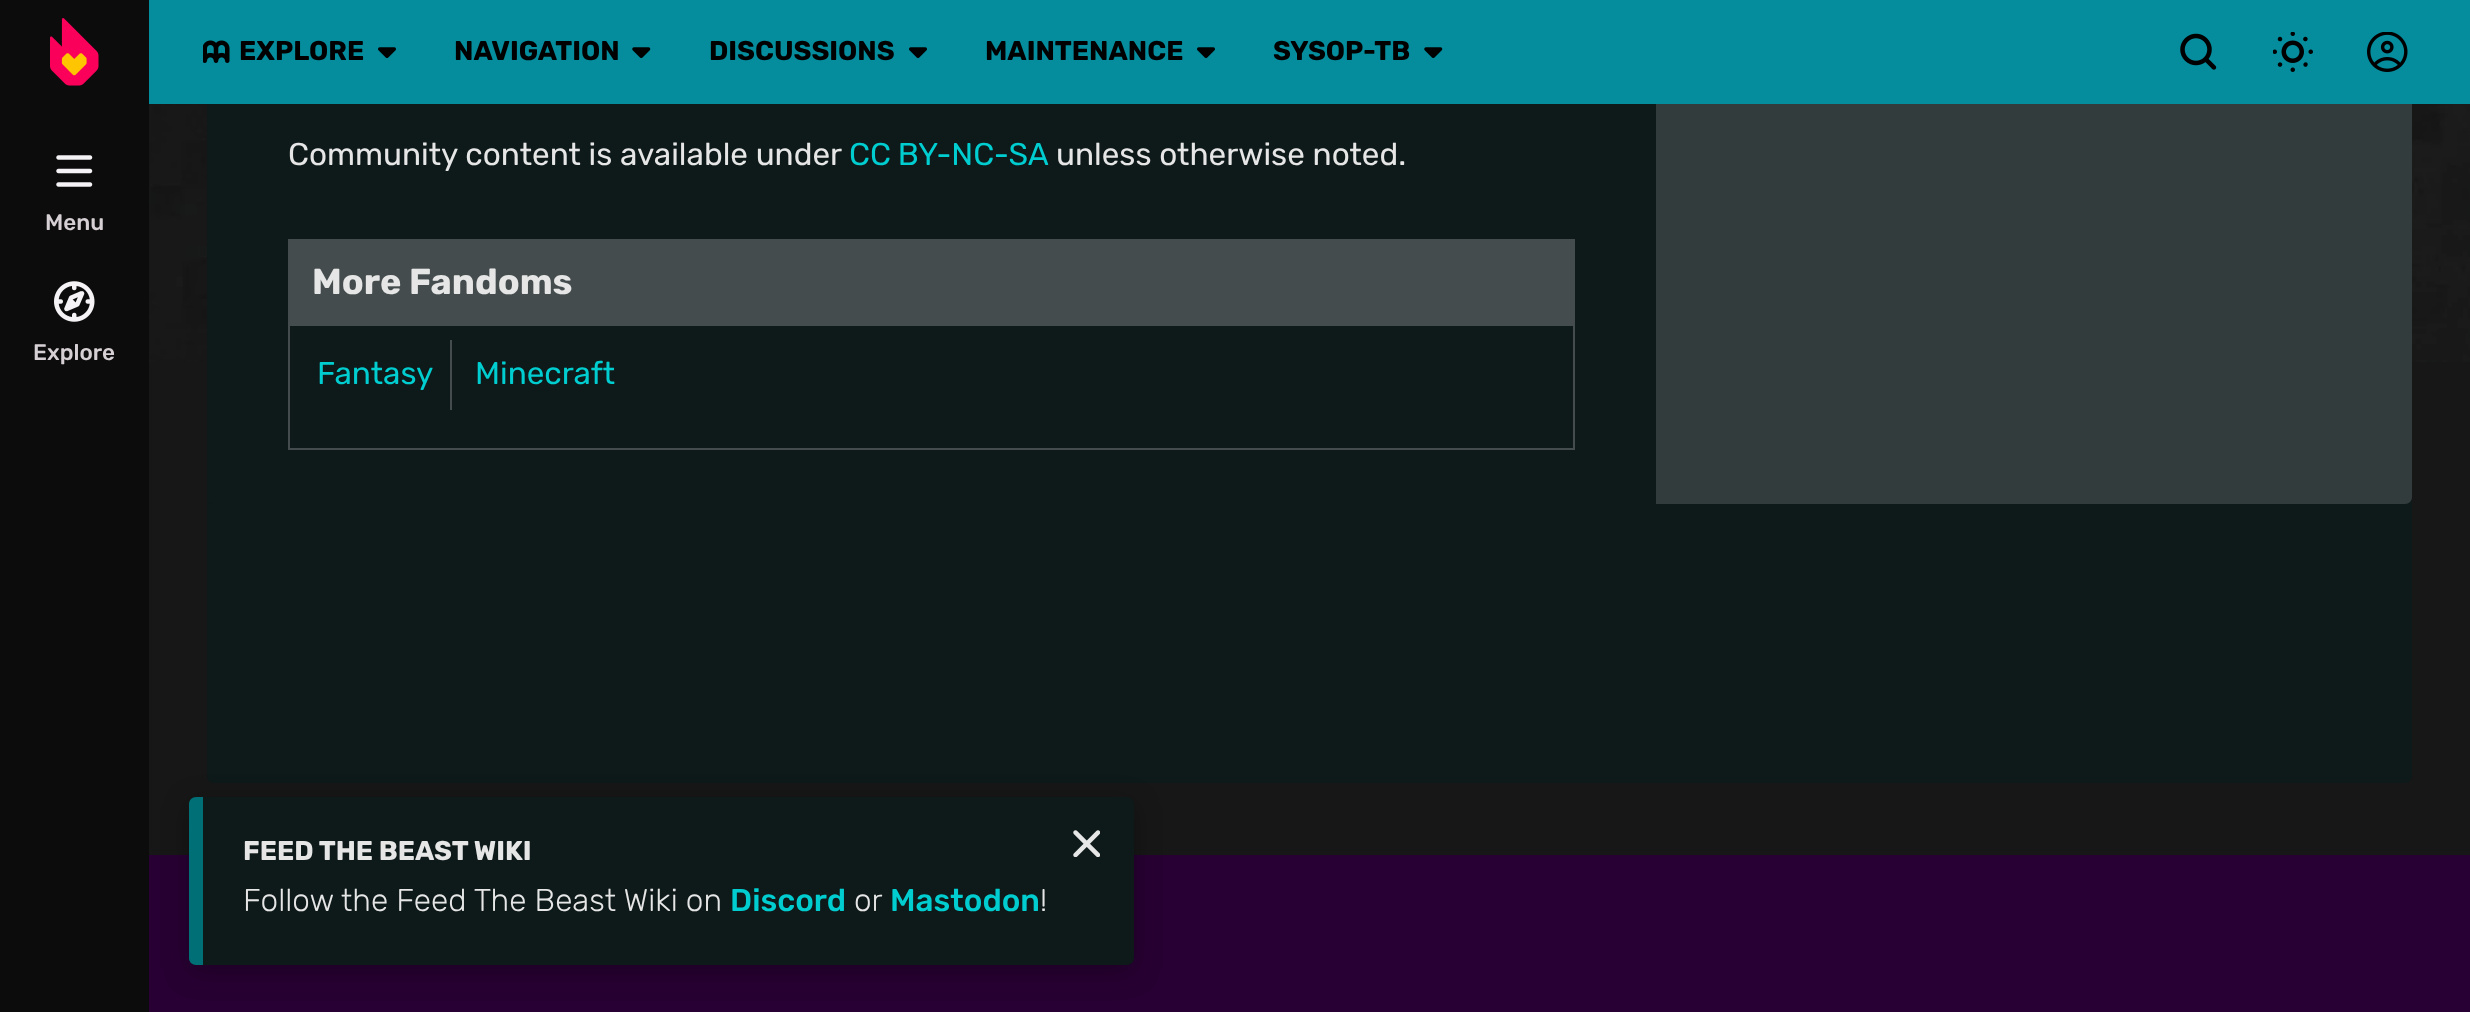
<svg xmlns="http://www.w3.org/2000/svg" xmlns:xlink="http://www.w3.org/1999/xlink" width="2470" height="1012" viewBox="0 0 2470 1012">
<style>
.cls-1{font:bold 27px Rubik;fill:#000000}
.cls-2{font:500 22.5px Rubik;fill:#d6d0d5}
.cls-3{font:31.5px Rubik;fill:#e6e6e6}
.cls-4{font:31.5px Rubik;fill:#00cdd0}
.cls-5{font:bold 36px Rubik;fill:#e6e6e6}
.cls-6{font:bold 27px Rubik;fill:#e6e6e6}
.cls-7{font:300 31.5px Rubik;fill:#e6e6e6}
.cls-8{font:500 31.5px Rubik;fill:#00cdd0}
</style>
<rect width="100%" height="100%" fill="#171717"/>
<image xlink:href="image0.png" x="149" y="104" width="2321" height="258"/>
<path fill="#0e191a" d="M207 500H2412V776C2412 780 2409 783 2405 783H214C210 783 207 780 207 776Z"/>
<path fill="#0e191a" d="M214-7H1656V504H214C210 504 207 501 207 497V0C207-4 210-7 214-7Z"/>
<path fill="#323c3c" d="M1656-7H2405C2409-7 2412-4 2412 0V497C2412 501 2409 504 2405 504H1656Z"/>
<rect fill="#058d9d" x="149" y="0" width="2321" height="104"/>
<rect fill="#280033" x="149" y="855" width="2321" height="157"/>
<rect fill="#000000" fill-opacity="0.3" filter="blur(13.5px)" x="189" y="803" width="945" height="169" rx="7"/>
<rect fill="#0c0c0c" x="0" y="0" width="149" height="1012"/>
<image xlink:href="image1.png" x="50" y="18" width="49" height="68"/>
<image xlink:href="image2.png" x="203" y="40" width="27" height="23"/>
<image xlink:href="image3.png" x="378" y="47" width="18" height="11"/>
<image xlink:href="image4.png" x="632" y="47" width="19" height="11"/>
<image xlink:href="image3.png" x="909" y="47" width="18" height="11"/>
<image xlink:href="image3.png" x="1197" y="47" width="18" height="11"/>
<image xlink:href="image4.png" x="1424" y="47" width="19" height="11"/>
<image xlink:href="image5.png" x="2180" y="33" width="37" height="37"/>
<image xlink:href="image6.png" x="2273" y="32" width="40" height="40"/>
<image xlink:href="image7.png" x="2367" y="32" width="41" height="40"/>
<image xlink:href="image8.png" x="56" y="155" width="37" height="32"/>
<image xlink:href="image9.png" x="54" y="281" width="41" height="41"/>
<rect fill="none" stroke="#444c4d" stroke-width="2" x="289" y="240" width="1285" height="209"/>
<rect fill="#444c4d" x="290" y="241" width="1283" height="85"/>
<rect fill="#444c4d" x="450" y="340" width="2" height="70"/>
<rect fill="#0e191a" x="189" y="797" width="945" height="168" rx="7"/>
<path fill="#006f76" d="M196 797H203V965H196C192 965 189 962 189 958V804C189 800 192 797 196 797Z"/>
<image xlink:href="image10.png" x="1073" y="830" width="27" height="27"/>
<text class="cls-1" x="239" y="60">EXPLORE</text>
<text class="cls-1" x="454" y="60">NAVIGATION</text>
<text class="cls-1" x="709" y="60">DISCUSSIONS</text>
<text class="cls-1" x="985" y="60">MAINTENANCE</text>
<text class="cls-1" x="1273" y="60">SYSOP-TB</text>
<text class="cls-2" x="45" y="230">Menu</text>
<text class="cls-2" x="33" y="360">Explore</text>
<text class="cls-3" x="288" y="165">Community content is available under</text>
<text class="cls-4" x="849" y="165" word-spacing="-1">CC BY-NC-SA</text>
<text class="cls-3" x="1056" y="165">unless otherwise noted.</text>
<text class="cls-5" x="312" y="294">More Fandoms</text>
<text class="cls-4" x="317" y="384">Fantasy</text>
<text class="cls-4" x="475" y="384">Minecraft</text>
<text class="cls-6" x="243" y="860">FEED THE BEAST WIKI</text>
<text class="cls-7" x="243" y="911">Follow the Feed The Beast Wiki on</text>
<text class="cls-8" x="730" y="911">Discord</text>
<text class="cls-7" x="854" y="911">or</text>
<text class="cls-8" x="890" y="911">Mastodon</text>
<text class="cls-7" x="1040" y="911">!</text>
</svg>
